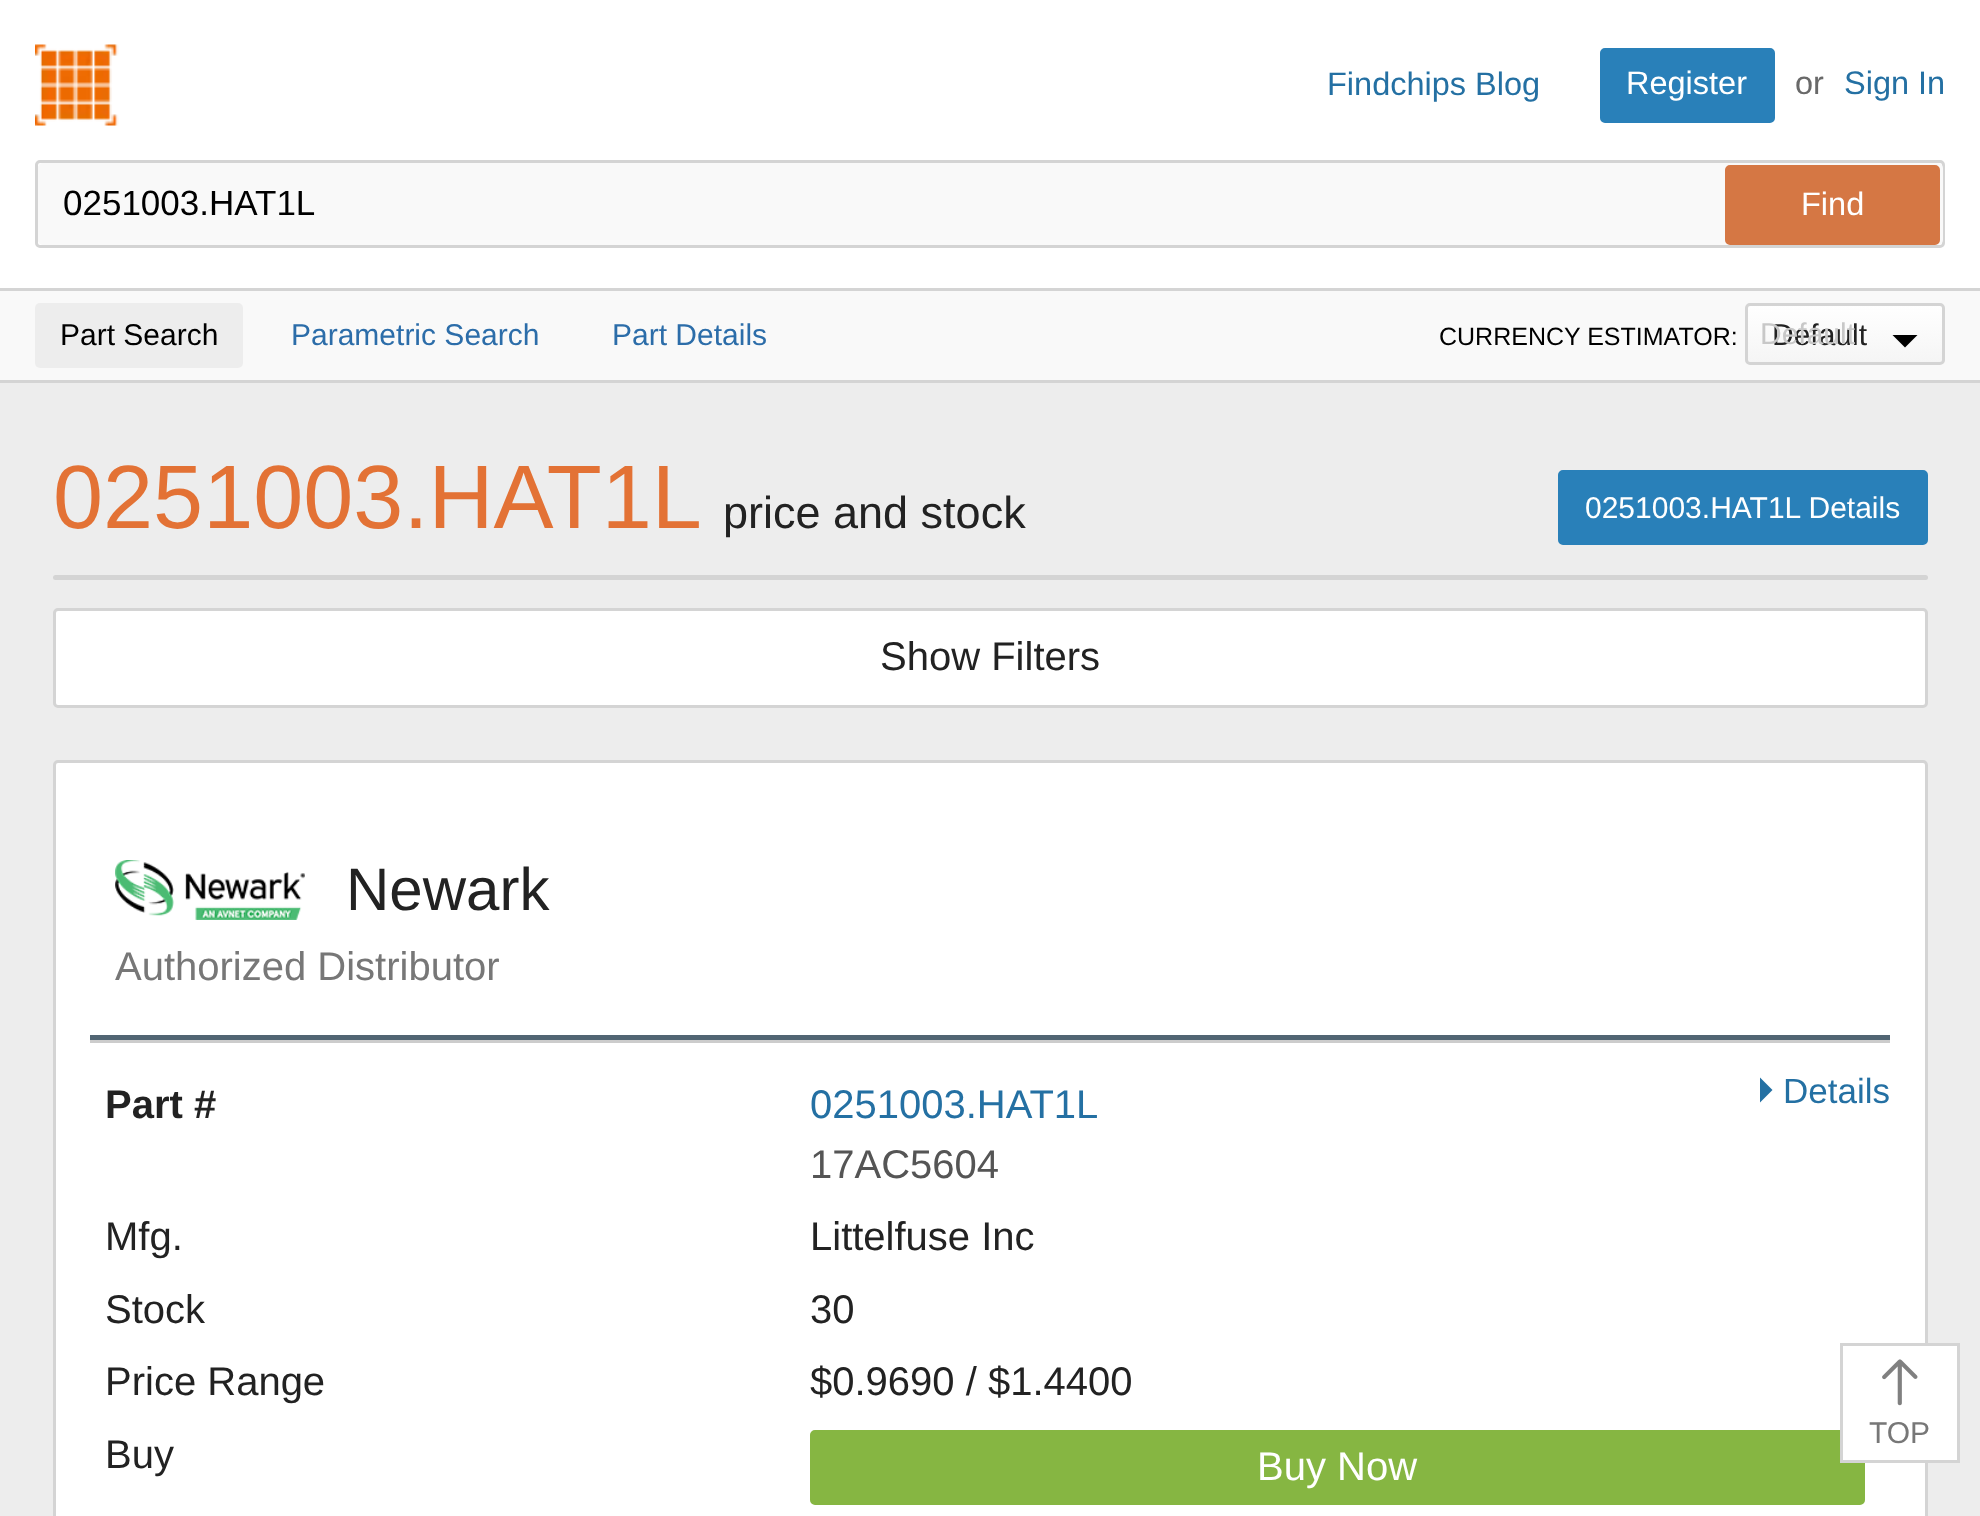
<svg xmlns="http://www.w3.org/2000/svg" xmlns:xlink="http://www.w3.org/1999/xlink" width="1980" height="1516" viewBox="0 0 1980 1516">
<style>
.cls-1{font:32.5px Liberation Sans;fill:#2470a3}
.cls-2{font:32.5px Liberation Sans;fill:#ffffff}
.cls-3{font:32.5px Liberation Sans;fill:#696969}
.cls-4{font:35px Liberation Sans;fill:#000000}
.cls-5{font:30px Liberation Sans;fill:#000000}
.cls-6{font:30px Liberation Sans;fill:#2c6da9}
.cls-7{font:25px Liberation Sans;fill:#000000}
.cls-8{font:30px Liberation Sans;fill:#222222}
.cls-9{font:30px Liberation Sans;fill:#c8c8c8}
.cls-10{font:90px Liberation Sans;fill:#e37235}
.cls-11{font:45px Liberation Sans;fill:#222222}
.cls-12{font:30px Liberation Sans;fill:#ffffff}
.cls-13{font:40px Liberation Sans;fill:#222222}
.cls-14{font:60px Liberation Sans;fill:#222222}
.cls-15{font:40px Liberation Sans;fill:#777777}
.cls-16{font:bold 40px Liberation Sans;fill:#222222}
.cls-17{font:40px Liberation Sans;fill:#2470a3}
.cls-18{font:40px Liberation Sans;fill:#555555}
.cls-19{font:35px Liberation Sans;fill:#2470a3}
.cls-20{font:40px Liberation Sans;fill:#ffffff}
.cls-21{font:30px Liberation Sans;fill:#777777}
</style>
<defs>
<clipPath id="clip1"><rect x="1745" y="303" width="200" height="62" rx="5"/></clipPath>
<linearGradient id="g1" gradientUnits="userSpaceOnUse" x1="1845" y1="305" x2="1845" y2="363"><stop offset="0" stop-color="#ffffff"/><stop offset="1" stop-color="#f5f5f5"/></linearGradient>
</defs>
<rect width="100%" height="100%" fill="#ededed"/>
<rect fill="#ffffff" x="0" y="0" width="1980" height="288"/>
<rect fill="#d4d4d4" x="0" y="380" width="1980" height="3"/>
<image xlink:href="image0.png" x="35" y="44" width="84" height="82"/>
<rect fill="#2980b9" stroke="#2980b9" stroke-width="3" x="1601.5" y="49.5" width="172" height="72" rx="3.5"/>
<rect fill="none" stroke="#d4d4d4" stroke-width="3" x="36.5" y="161.5" width="1907" height="85" rx="3.5"/>
<rect fill="#f9f9f9" x="38" y="163" width="1905" height="82" rx="5"/>
<rect fill="#d57744" stroke="#d57744" stroke-width="3" x="1726.5" y="166.5" width="212" height="77" rx="3.5"/>
<rect fill="#f9f9f9" x="0" y="291" width="1980" height="89"/>
<rect fill="#d4d4d4" x="0" y="288" width="1980" height="3"/>
<rect fill="#ededed" x="35" y="303" width="208" height="65" rx="5"/>
<g clip-path="url(#clip1)">
<rect fill="url(#g1)" x="1745" y="305" width="200" height="58"/>
</g>
<rect fill="none" stroke="#d4d4d4" stroke-width="3" x="1746.5" y="304.5" width="197" height="59" rx="3.5"/>
<path fill="#000000" d="M1892.5 335H1917.5L1905 347.5Z"/>
<rect fill="#2980b9" stroke="#2980b9" stroke-width="3" x="1559.5" y="471.5" width="367" height="72" rx="3.5"/>
<rect fill="#d4d4d4" x="53" y="575" width="1875" height="5" rx="2.5"/>
<rect fill="#ffffff" stroke="#d4d4d4" stroke-width="3" x="54.5" y="609.5" width="1872" height="97" rx="3.5"/>
<rect fill="#ffffff" stroke="#d4d4d4" stroke-width="3" x="54.5" y="761.5" width="1872" height="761" rx="3.5"/>
<image xlink:href="image1.png" x="115" y="860" width="190" height="60"/>
<rect fill="#516573" x="90" y="1035" width="1800" height="5"/>
<rect fill="#cccccc" x="90" y="1040" width="1800" height="3"/>
<path fill="#2470a3" d="M1760 1102.5V1077.5L1772.5 1090Z"/>
<rect fill="#86b642" stroke="#86b642" stroke-width="3" x="811.5" y="1431.5" width="1052" height="72" rx="3.5"/>
<rect fill="#ffffff" stroke="#d4d4d4" stroke-width="3" x="1841.5" y="1344.5" width="117" height="117"/>
<image xlink:href="image2.png" x="1882" y="1359" width="36" height="47"/>
<text class="cls-1" x="1327" y="95">Findchips Blog</text>
<text class="cls-2" x="1626" y="94">Register</text>
<text class="cls-3" x="1795" y="94">or</text>
<text class="cls-1" x="1844" y="94">Sign In</text>
<text class="cls-4" x="63" y="215">0251003.HAT1L</text>
<text class="cls-2" x="1801" y="215">Find</text>
<text class="cls-5" x="60" y="345">Part Search</text>
<text class="cls-6" x="291" y="345">Parametric Search</text>
<text class="cls-6" x="612" y="345">Part Details</text>
<text class="cls-7" x="1439" y="345">CURRENCY ESTIMATOR:</text>
<text class="cls-8" x="1772" y="345">Default</text>
<text class="cls-9" x="1760" y="344">Default</text>
<text class="cls-10" x="53" y="528">0251003.HAT1L</text>
<text class="cls-11" x="723" y="528">price and stock</text>
<text class="cls-12" x="1585" y="518">0251003.HAT1L Details</text>
<text class="cls-13" x="880" y="670">Show Filters</text>
<text class="cls-14" x="346" y="910">Newark</text>
<text class="cls-15" x="115" y="980">Authorized Distributor</text>
<text class="cls-16" x="105" y="1118">Part #</text>
<text class="cls-17" x="810" y="1118">0251003.HAT1L</text>
<text class="cls-18" x="810" y="1178">17AC5604</text>
<text class="cls-19" x="1783" y="1103">Details</text>
<text class="cls-13" x="105" y="1250">Mfg.</text>
<text class="cls-13" x="810" y="1250">Littelfuse Inc</text>
<text class="cls-13" x="105" y="1323">Stock</text>
<text class="cls-13" x="810" y="1323">30</text>
<text class="cls-13" x="105" y="1395">Price Range</text>
<text class="cls-13" x="810" y="1395">$0.9690 / $1.4400</text>
<text class="cls-13" x="105" y="1468">Buy</text>
<text class="cls-20" x="1257" y="1480">Buy Now</text>
<text class="cls-21" x="1869" y="1443">TOP</text>
</svg>
